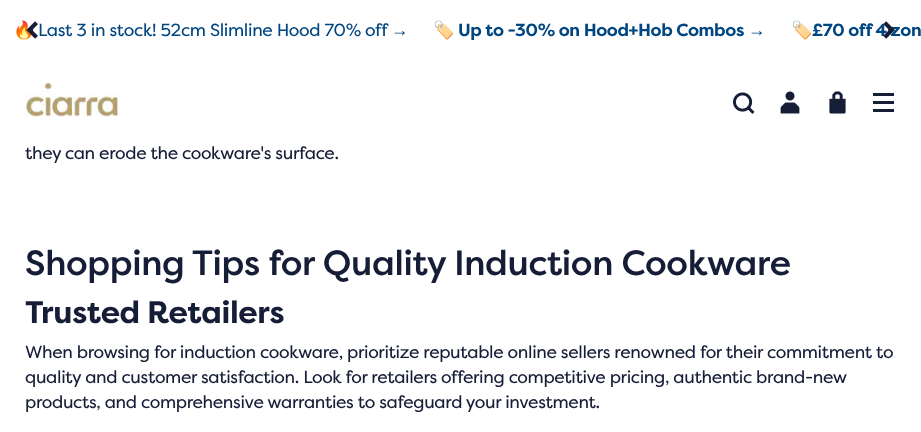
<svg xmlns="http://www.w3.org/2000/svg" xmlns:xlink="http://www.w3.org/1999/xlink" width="921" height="432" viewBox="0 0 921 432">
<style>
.cls-1{font:17.5px Noto Color Emoji;letter-spacing:-0.35px;fill:#004681}
.cls-2{font:17.5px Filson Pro;letter-spacing:-0.35px;fill:#004681}
.cls-3{font:17.5px Liberation Sans;letter-spacing:-0.35px;fill:#004681}
.cls-4{font:bold 17.5px Noto Color Emoji;letter-spacing:-0.35px;fill:#004681}
.cls-5{font:bold 17.5px Filson Pro;letter-spacing:-0.35px;fill:#004681}
.cls-6{font:bold 17.5px Liberation Sans;letter-spacing:-0.35px;fill:#004681}
.cls-7{font:17.5px Filson Pro;letter-spacing:-0.35px;fill:#161d37}
.cls-8{font:500 35px Filson Pro;letter-spacing:-0.35px;fill:#161d37}
.cls-9{font:bold 31.25px Filson Pro;letter-spacing:-0.35px;fill:#161d37}
</style>
<rect width="100%" height="100%" fill="#ffffff"/>
<image xlink:href="image2.png" x="25" y="82" width="94" height="35"/>
<image xlink:href="image3.png" x="733" y="92" width="22" height="22"/>
<image xlink:href="image4.png" x="780" y="91" width="20" height="23"/>
<image xlink:href="image5.png" x="829" y="91" width="17" height="23"/>
<rect fill="#161d37" x="873" y="93" width="21" height="3"/>
<rect fill="#161d37" x="873" y="101" width="21" height="3"/>
<rect fill="#161d37" x="873" y="109" width="21" height="3"/>
<text class="cls-1" x="13" y="36">🔥</text>
<text class="cls-2" x="38" y="36">Last 3 in stock! 52cm Slimline Hood 70% off</text>
<text class="cls-3" x="391" y="36">→</text>
<text class="cls-4" x="433" y="36">🏷️</text>
<text class="cls-5" x="458" y="36">Up to -30% on Hood+Hob Combos</text>
<text class="cls-6" x="748" y="36">→</text>
<text class="cls-4" x="791" y="36">🏷️</text>
<text class="cls-5" x="812" y="36">£70 off 4 zon</text>
<image xlink:href="image0.png" x="26" y="21" width="12" height="18"/>
<image xlink:href="image1.png" x="883" y="21" width="12" height="18"/>
<text class="cls-7" x="25" y="159">they can erode the cookware's surface.</text>
<text class="cls-8" x="25" y="275">Shopping Tips for Quality Induction Cookware</text>
<text class="cls-9" x="25" y="323">Trusted Retailers</text>
<text class="cls-7"><tspan x="25" y="358">When browsing for induction cookware, prioritize reputable online sellers renowned for their commitment to</tspan><tspan x="25" y="383">quality and customer satisfaction. Look for retailers offering competitive pricing, authentic brand-new</tspan><tspan x="25" y="408">products, and comprehensive warranties to safeguard your investment.</tspan></text>
</svg>
